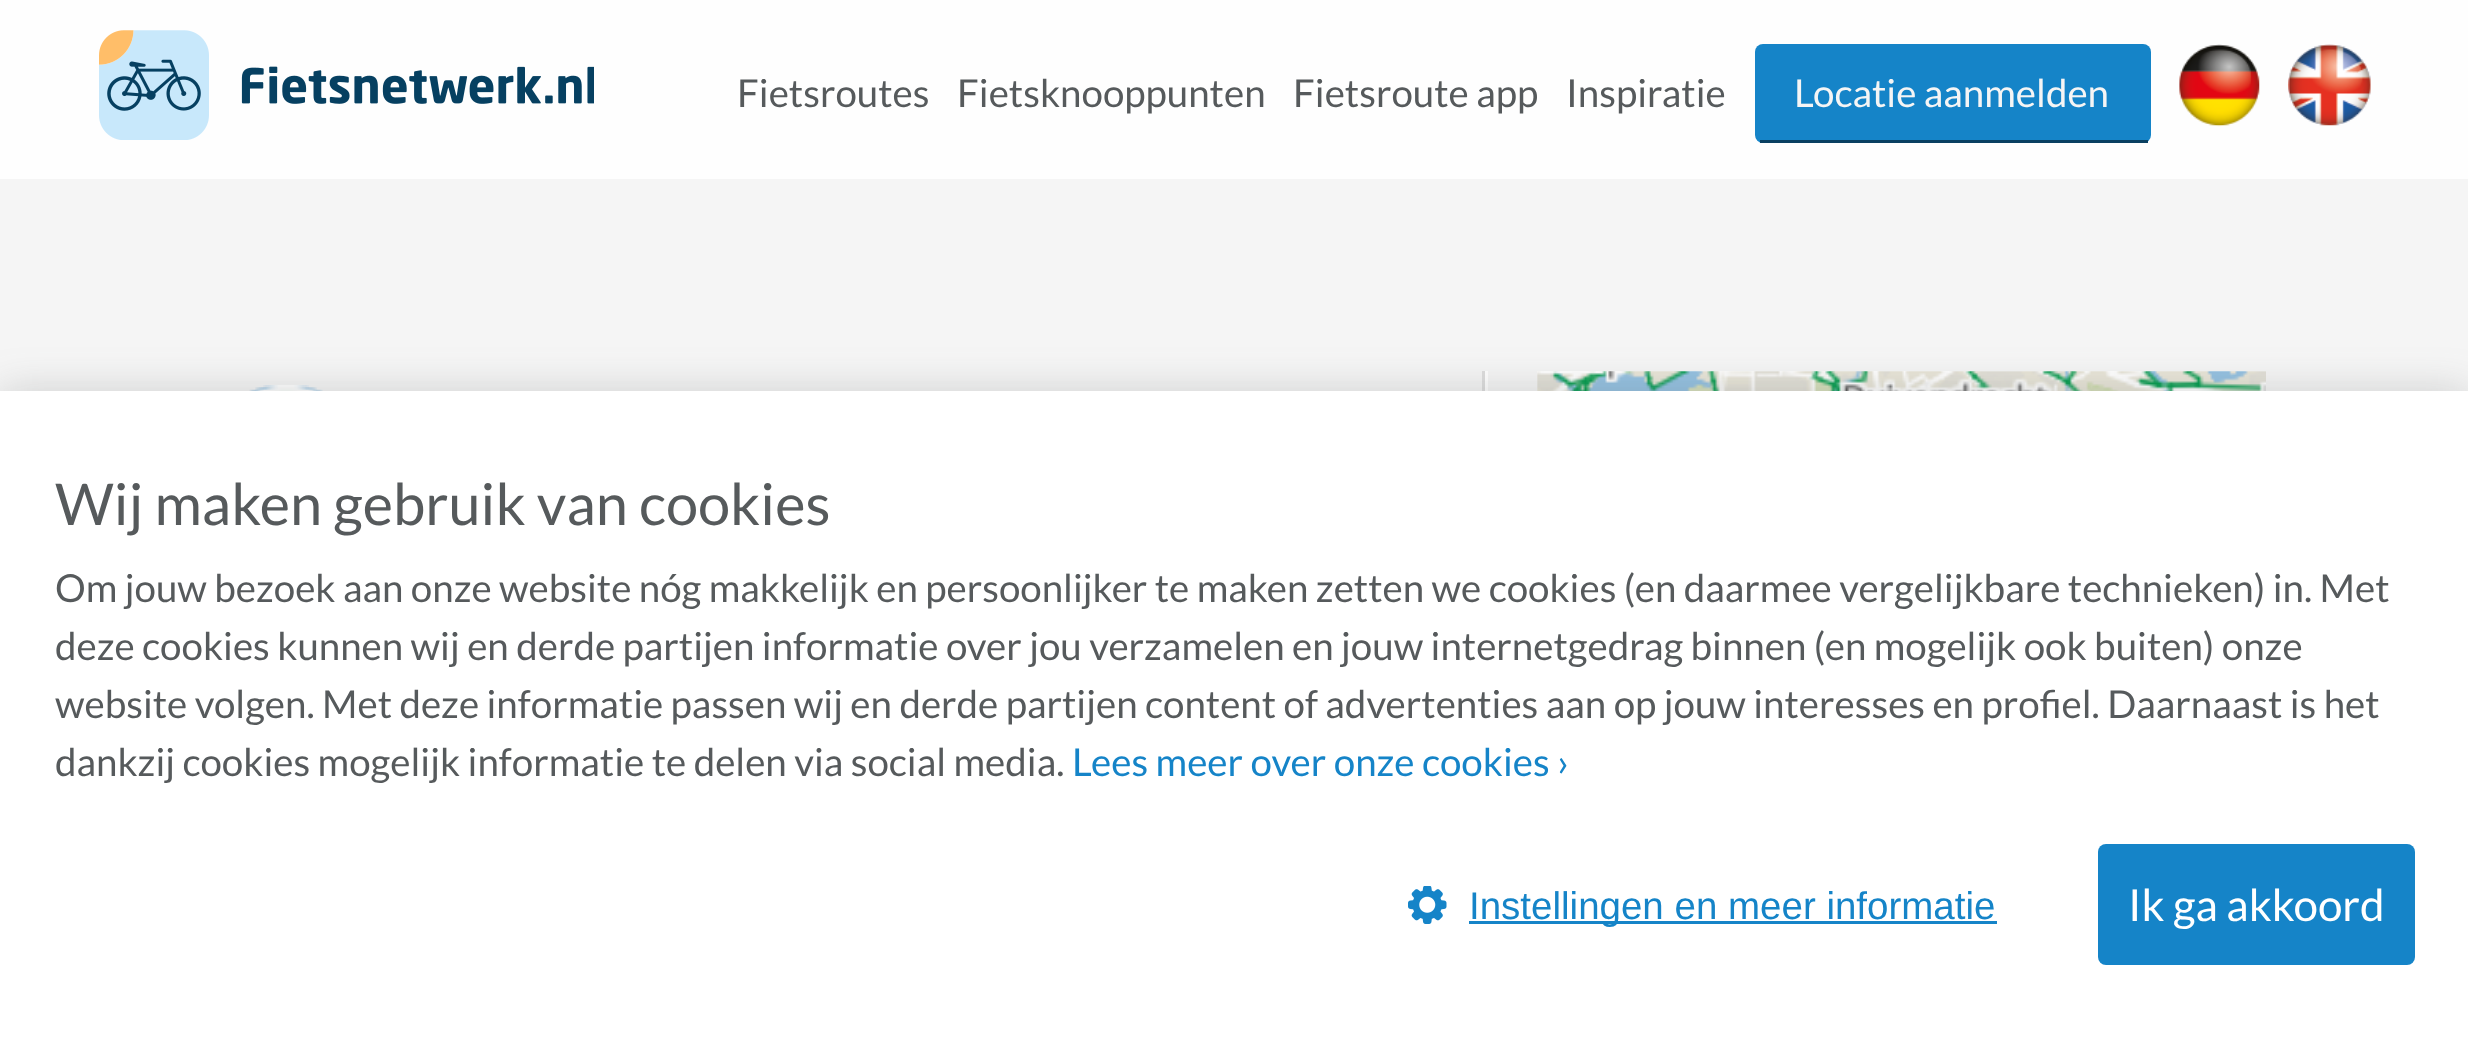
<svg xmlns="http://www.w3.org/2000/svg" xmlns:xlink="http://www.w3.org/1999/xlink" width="2468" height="1046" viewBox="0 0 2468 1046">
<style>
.cls-1{font:38.5px Lato;fill:#565a5c}
.cls-2{font:38.5px Lato;fill:#f5f5f5}
.cls-3{font:57.75px Lato;fill:#565a5c}
.cls-4{font:38.5px Lato;fill:#1584c8}
.cls-5{font:38.5px Liberation Sans;fill:#1584c8}
.cls-6{font:44px Lato;fill:#ffffff}
</style>
<rect width="100%" height="100%" fill="#f5f5f5"/>
<rect fill="#fefefe" x="0" y="0" width="2468" height="179"/>
<image xlink:href="image0.png" x="99" y="30" width="495" height="110"/>
<rect fill="#1584c8" x="1755" y="44" width="396" height="99" rx="8"/>
<rect fill="#0a4061" x="1760" y="140" width="388" height="3"/>
<image xlink:href="image1.png" x="2179" y="44" width="81" height="83"/>
<image xlink:href="image2.png" x="2288" y="44" width="83" height="82"/>
<image xlink:href="image3.png" x="249" y="385" width="74" height="6"/>
<image xlink:href="image4.png" x="250" y="385" width="73" height="6"/>
<rect fill="#ffffff" x="1485" y="371" width="3" height="20"/>
<rect fill="#dddddd" x="1482" y="371" width="3" height="20"/>
<rect fill="#ffffff" x="1537" y="371" width="729" height="20"/>
<image xlink:href="image5.png" x="1537" y="371" width="729" height="20"/>
<rect fill="#565a5c" fill-opacity="0.25" filter="blur(20.5px)" x="0" y="391" width="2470" height="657"/>
<rect fill="#ffffff" x="0" y="391" width="2468" height="655"/>
<image xlink:href="image6.png" x="1408" y="886" width="39" height="38"/>
<rect fill="#1584c8" x="1469" y="921" width="528" height="3"/>
<rect fill="#1584c8" x="2098" y="844" width="317" height="121" rx="8"/>
<text class="cls-1" x="737" y="107">Fietsroutes</text>
<text class="cls-1" x="957" y="107">Fietsknooppunten</text>
<text class="cls-1" x="1293" y="107">Fietsroute app</text>
<text class="cls-1" x="1566" y="107">Inspiratie</text>
<text class="cls-2" x="1794" y="107">Locatie aanmelden</text>
<text class="cls-3" x="55" y="525">Wij maken gebruik van cookies</text>
<text class="cls-1"><tspan x="55" y="602">Om jouw bezoek aan onze website nóg makkelijk en persoonlijker te maken zetten we cookies (en daarmee vergelijkbare technieken) in. Met</tspan><tspan x="55" y="660">deze cookies kunnen wij en derde partijen informatie over jou verzamelen en jouw internetgedrag binnen (en mogelijk ook buiten) onze</tspan><tspan x="55" y="718">website volgen. Met deze informatie passen wij en derde partijen content of advertenties aan op jouw interesses en profiel. Daarnaast is het</tspan><tspan x="55" y="776">dankzij cookies mogelijk informatie te delen via social media.</tspan></text>
<text class="cls-4" x="1072" y="776">Lees meer over onze cookies ›</text>
<text class="cls-5" x="1469" y="919">Instellingen en meer informatie</text>
<text class="cls-6" x="2128" y="921">Ik ga akkoord</text>
</svg>
